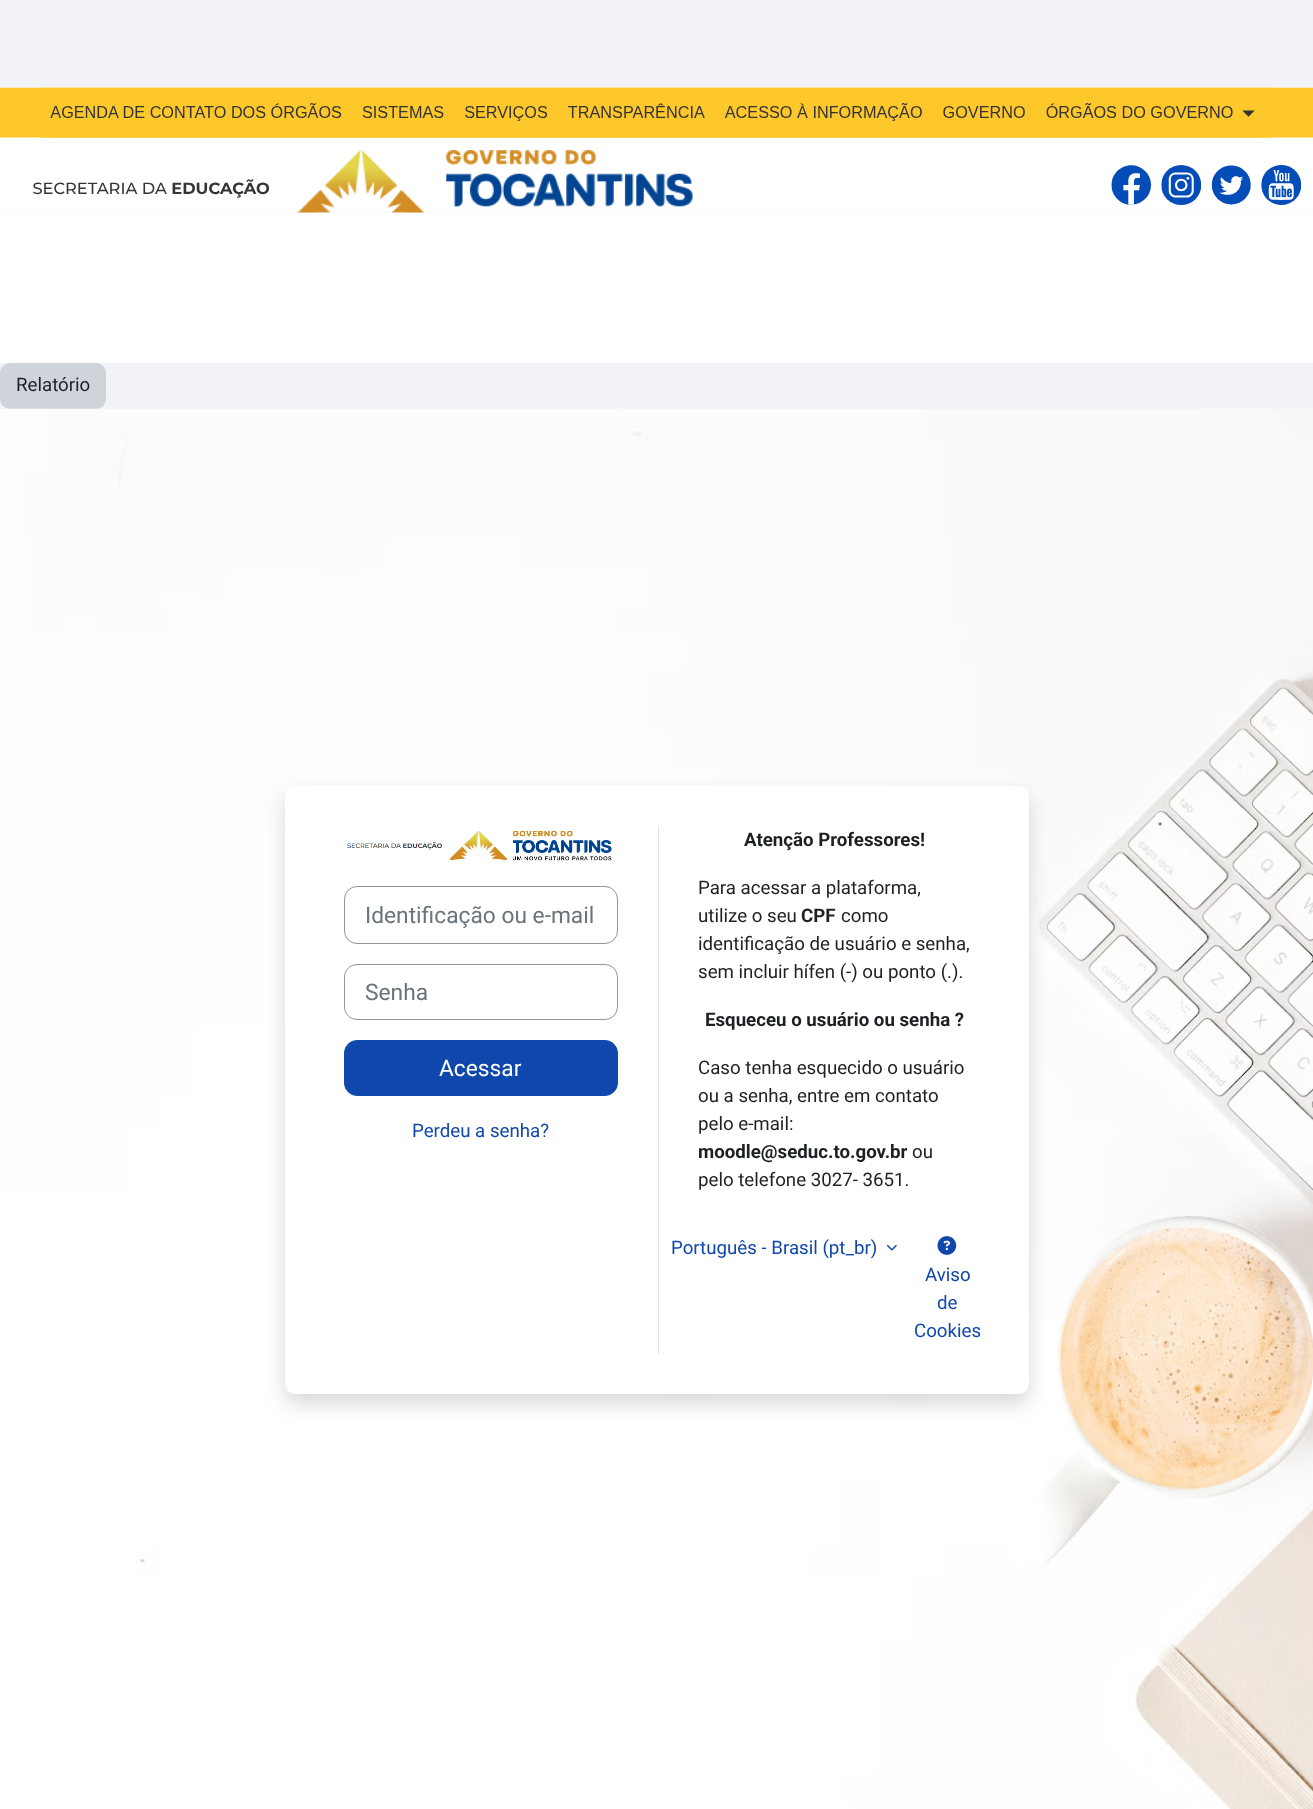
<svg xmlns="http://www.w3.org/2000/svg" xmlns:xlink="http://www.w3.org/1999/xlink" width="1313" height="1809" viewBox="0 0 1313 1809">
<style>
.cls-1{font:18.7px Roboto;fill:#1d2125}
.cls-2{font:22.75px Roboto;fill:#6a737b}
.cls-3{font:22.75px Roboto;fill:#ffffff}
.cls-4{font:18.7px Roboto;fill:#0f47ad}
.cls-5{font:bold 18.7px Roboto;fill:#1d2125}
</style>
<rect width="100%" height="100%" fill="#f2f3f7"/>
<image xlink:href="image0.png" x="0" y="87" width="1313" height="126"/>
<rect fill="#ffffff" x="0" y="213" width="1313" height="150"/>
<rect fill="#ced4da" stroke="#ced4da" x="0.5" y="363.5" width="105" height="45" rx="9.5"/>
<image xlink:href="image1.png" x="0" y="408" width="1313" height="1401"/>
<rect fill="#000000" fill-opacity="0.15" filter="blur(10px)" x="285" y="796" width="744" height="608" rx="10"/>
<rect fill="#ffffff" x="285" y="786" width="744" height="608" rx="10"/>
<image xlink:href="image2.png" x="347" y="830" width="265" height="31"/>
<rect fill="none" stroke="#8f959e" x="344.5" y="886.5" width="273" height="57" rx="12.5"/>
<rect fill="none" stroke="#8f959e" x="344.5" y="964.5" width="273" height="55" rx="12.5"/>
<rect fill="#0f47ad" stroke="#0f47ad" x="344.5" y="1040.5" width="273" height="55" rx="12.5"/>
<rect fill="#dee2e6" x="658" y="826" width="1" height="528"/>
<image xlink:href="image3.png" x="887" y="1245" width="10" height="6"/>
<image xlink:href="image4.png" x="937" y="1236" width="20" height="19"/>
<text class="cls-1" x="16" y="391">Relatório</text>
<text class="cls-2" x="365" y="923">Identificação ou e-mail</text>
<text class="cls-2" x="365" y="1000">Senha</text>
<text class="cls-3" x="439" y="1076">Acessar</text>
<text class="cls-4" x="412" y="1137">Perdeu a senha?</text>
<text class="cls-5" x="744" y="846">Atenção Professores!</text>
<text class="cls-1"><tspan x="698" y="894">Para acessar a plataforma,</tspan><tspan x="698" y="922">utilize o seu</tspan></text>
<text class="cls-5" x="801" y="922">CPF</text>
<text class="cls-1" x="841" y="922">como</text>
<text class="cls-1"><tspan x="698" y="950">identificação de usuário e senha,</tspan><tspan x="698" y="978">sem incluir hífen (-) ou ponto (.).</tspan></text>
<text class="cls-5" x="705" y="1026">Esqueceu o usuário ou senha ?</text>
<text class="cls-1"><tspan x="698" y="1074">Caso tenha esquecido o usuário</tspan><tspan x="698" y="1102">ou a senha, entre em contato</tspan><tspan x="698" y="1130">pelo e-mail:</tspan></text>
<text class="cls-5" x="698" y="1158">moodle@seduc.to.gov.br</text>
<text class="cls-1" x="912" y="1158">ou</text>
<text class="cls-1" x="698" y="1186">pelo telefone 3027- 3651.</text>
<text class="cls-4" x="671" y="1254">Português - Brasil (pt_br)</text>
<text class="cls-4" x="925" y="1281">Aviso</text>
<text class="cls-4" x="937" y="1309">de</text>
<text class="cls-4" x="914" y="1337">Cookies</text>
</svg>
